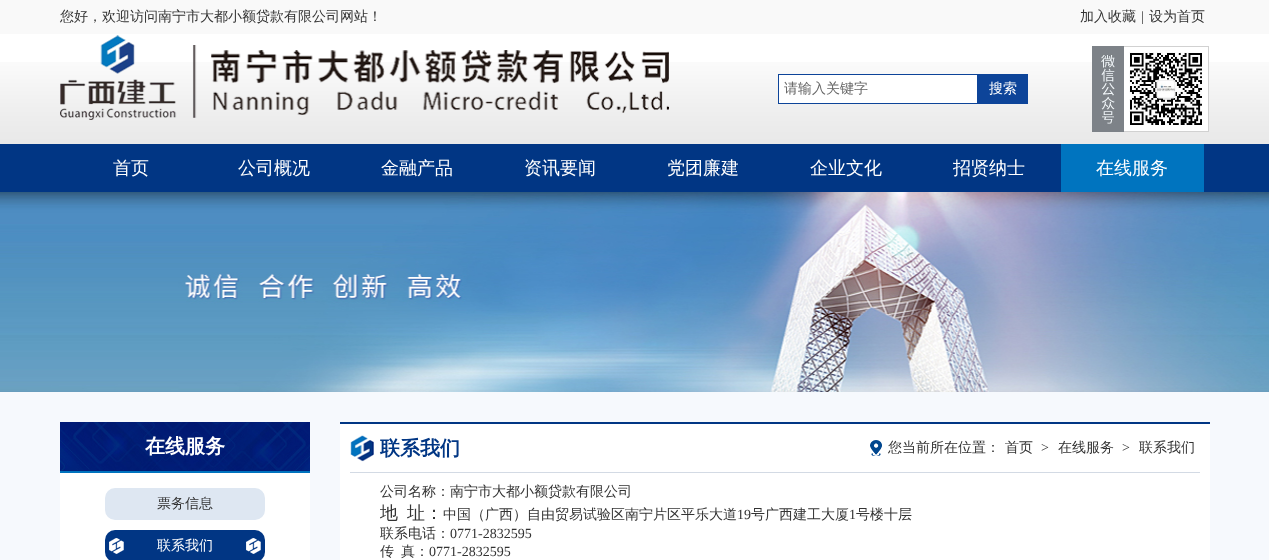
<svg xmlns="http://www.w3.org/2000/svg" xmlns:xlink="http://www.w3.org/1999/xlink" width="1269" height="560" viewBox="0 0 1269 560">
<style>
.cls-1{font:500 14px WenQuanYi Zen Hei;fill:#333333}
.cls-2{font:14px Liberation Serif;fill:#333333}
.cls-3{font:500 14px WenQuanYi Zen Hei;fill:#666666}
.cls-4{font:500 14px WenQuanYi Zen Hei;fill:#ffffff}
.cls-5{font:500 18px WenQuanYi Zen Hei;fill:#ffffff}
.cls-6{font:bold 20px WenQuanYi Zen Hei;fill:#ffffff}
.cls-7{font:bold 20px WenQuanYi Zen Hei;fill:#013684}
.cls-8{font:500 18px WenQuanYi Zen Hei;fill:#333333}
</style>
<rect width="100%" height="100%" fill="#ffffff"/>
<rect fill="#f9f9f9" x="0" y="0" width="1269" height="34"/>
<image xlink:href="image0.png" x="0" y="62" width="1269" height="82"/>
<image xlink:href="image1.png" x="60" y="35" width="609" height="85"/>
<rect fill="#ffffff" stroke="#0d4499" x="778.5" y="74.5" width="199" height="29"/>
<rect fill="#0d4499" x="978" y="74" width="50" height="30"/>
<image xlink:href="image2.png" x="1092" y="46" width="32" height="86"/>
<rect fill="#ffffff" x="1124" y="62" width="84" height="69"/>
<rect fill="#d1d1d1" x="1124" y="46" width="85" height="1"/>
<rect fill="#d1d1d1" x="1208" y="46" width="1" height="86"/>
<rect fill="#d1d1d1" x="1124" y="131" width="85" height="1"/>
<image xlink:href="image3.png" x="1129" y="52" width="73" height="73"/>
<rect fill="#013684" x="0" y="144" width="1269" height="48"/>
<rect fill="#0074bf" x="1061" y="144" width="143" height="48"/>
<image xlink:href="image4.png" x="0" y="192" width="1269" height="200"/>
<rect fill="#f6f9fd" x="0" y="392" width="1269" height="168"/>
<image xlink:href="image5.png" x="60" y="422" width="250" height="51"/>
<rect fill="#ffffff" x="60" y="473" width="250" height="87"/>
<rect fill="#dee7f2" x="105" y="488" width="160" height="32" rx="10"/>
<rect fill="#013684" x="105" y="530" width="160" height="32" rx="10"/>
<image xlink:href="image6.png" x="109" y="538" width="152" height="16"/>
<rect fill="#ffffff" x="340" y="424" width="870" height="136"/>
<rect fill="#013684" x="340" y="422" width="870" height="2"/>
<image xlink:href="image7.png" x="350" y="435" width="24" height="27"/>
<rect fill="#d3dae4" x="350" y="472" width="850" height="1"/>
<image xlink:href="image8.png" x="870" y="440" width="12" height="16"/>
<text class="cls-1" x="60" y="21">您好，欢迎访问南宁市大都小额贷款有限公司网站！</text>
<text class="cls-1" x="1080" y="21">加入收藏</text>
<text class="cls-2" x="1141" y="21">|</text>
<text class="cls-1" x="1149" y="21">设为首页</text>
<text class="cls-3" x="784" y="93">请输入关键字</text>
<text class="cls-4" x="989" y="93">搜索</text>
<text class="cls-5" x="113" y="174">首页</text>
<text class="cls-5" x="238" y="174">公司概况</text>
<text class="cls-5" x="381" y="174">金融产品</text>
<text class="cls-5" x="524" y="174">资讯要闻</text>
<text class="cls-5" x="667" y="174">党团廉建</text>
<text class="cls-5" x="810" y="174">企业文化</text>
<text class="cls-5" x="953" y="174">招贤纳士</text>
<text class="cls-5" x="1096" y="174">在线服务</text>
<text class="cls-6" x="145" y="453">在线服务</text>
<text class="cls-1" x="157" y="508">票务信息</text>
<text class="cls-4" x="157" y="550">联系我们</text>
<text class="cls-7" x="380" y="455">联系我们</text>
<text class="cls-1" x="888" y="452">您当前所在位置：</text>
<text class="cls-1" x="1005" y="452">首页</text>
<text class="cls-2" x="1041" y="452">&gt;</text>
<text class="cls-1" x="1058" y="452">在线服务</text>
<text class="cls-2" x="1122" y="452">&gt;</text>
<text class="cls-1" x="1139" y="452">联系我们</text>
<text class="cls-1" x="380" y="496">公司名称：南宁市大都小额贷款有限公司</text>
<text class="cls-8" x="380" y="519">地</text>
<text class="cls-8" x="407" y="519">址：</text>
<text class="cls-1" x="443" y="519">中国（广西）自由贸易试验区南宁片区平乐大道</text>
<text class="cls-2" x="737" y="519">19</text>
<text class="cls-1" x="751" y="519">号广西建工大厦</text>
<text class="cls-2" x="849" y="519">1</text>
<text class="cls-1" x="856" y="519">号楼十层</text>
<text class="cls-1" x="380" y="538">联系电话：</text>
<text class="cls-2" x="450" y="538">0771-2832595</text>
<text class="cls-1" x="380" y="556">传</text>
<text class="cls-1" x="401" y="556">真：</text>
<text class="cls-2" x="429" y="556">0771-2832595</text>
</svg>
